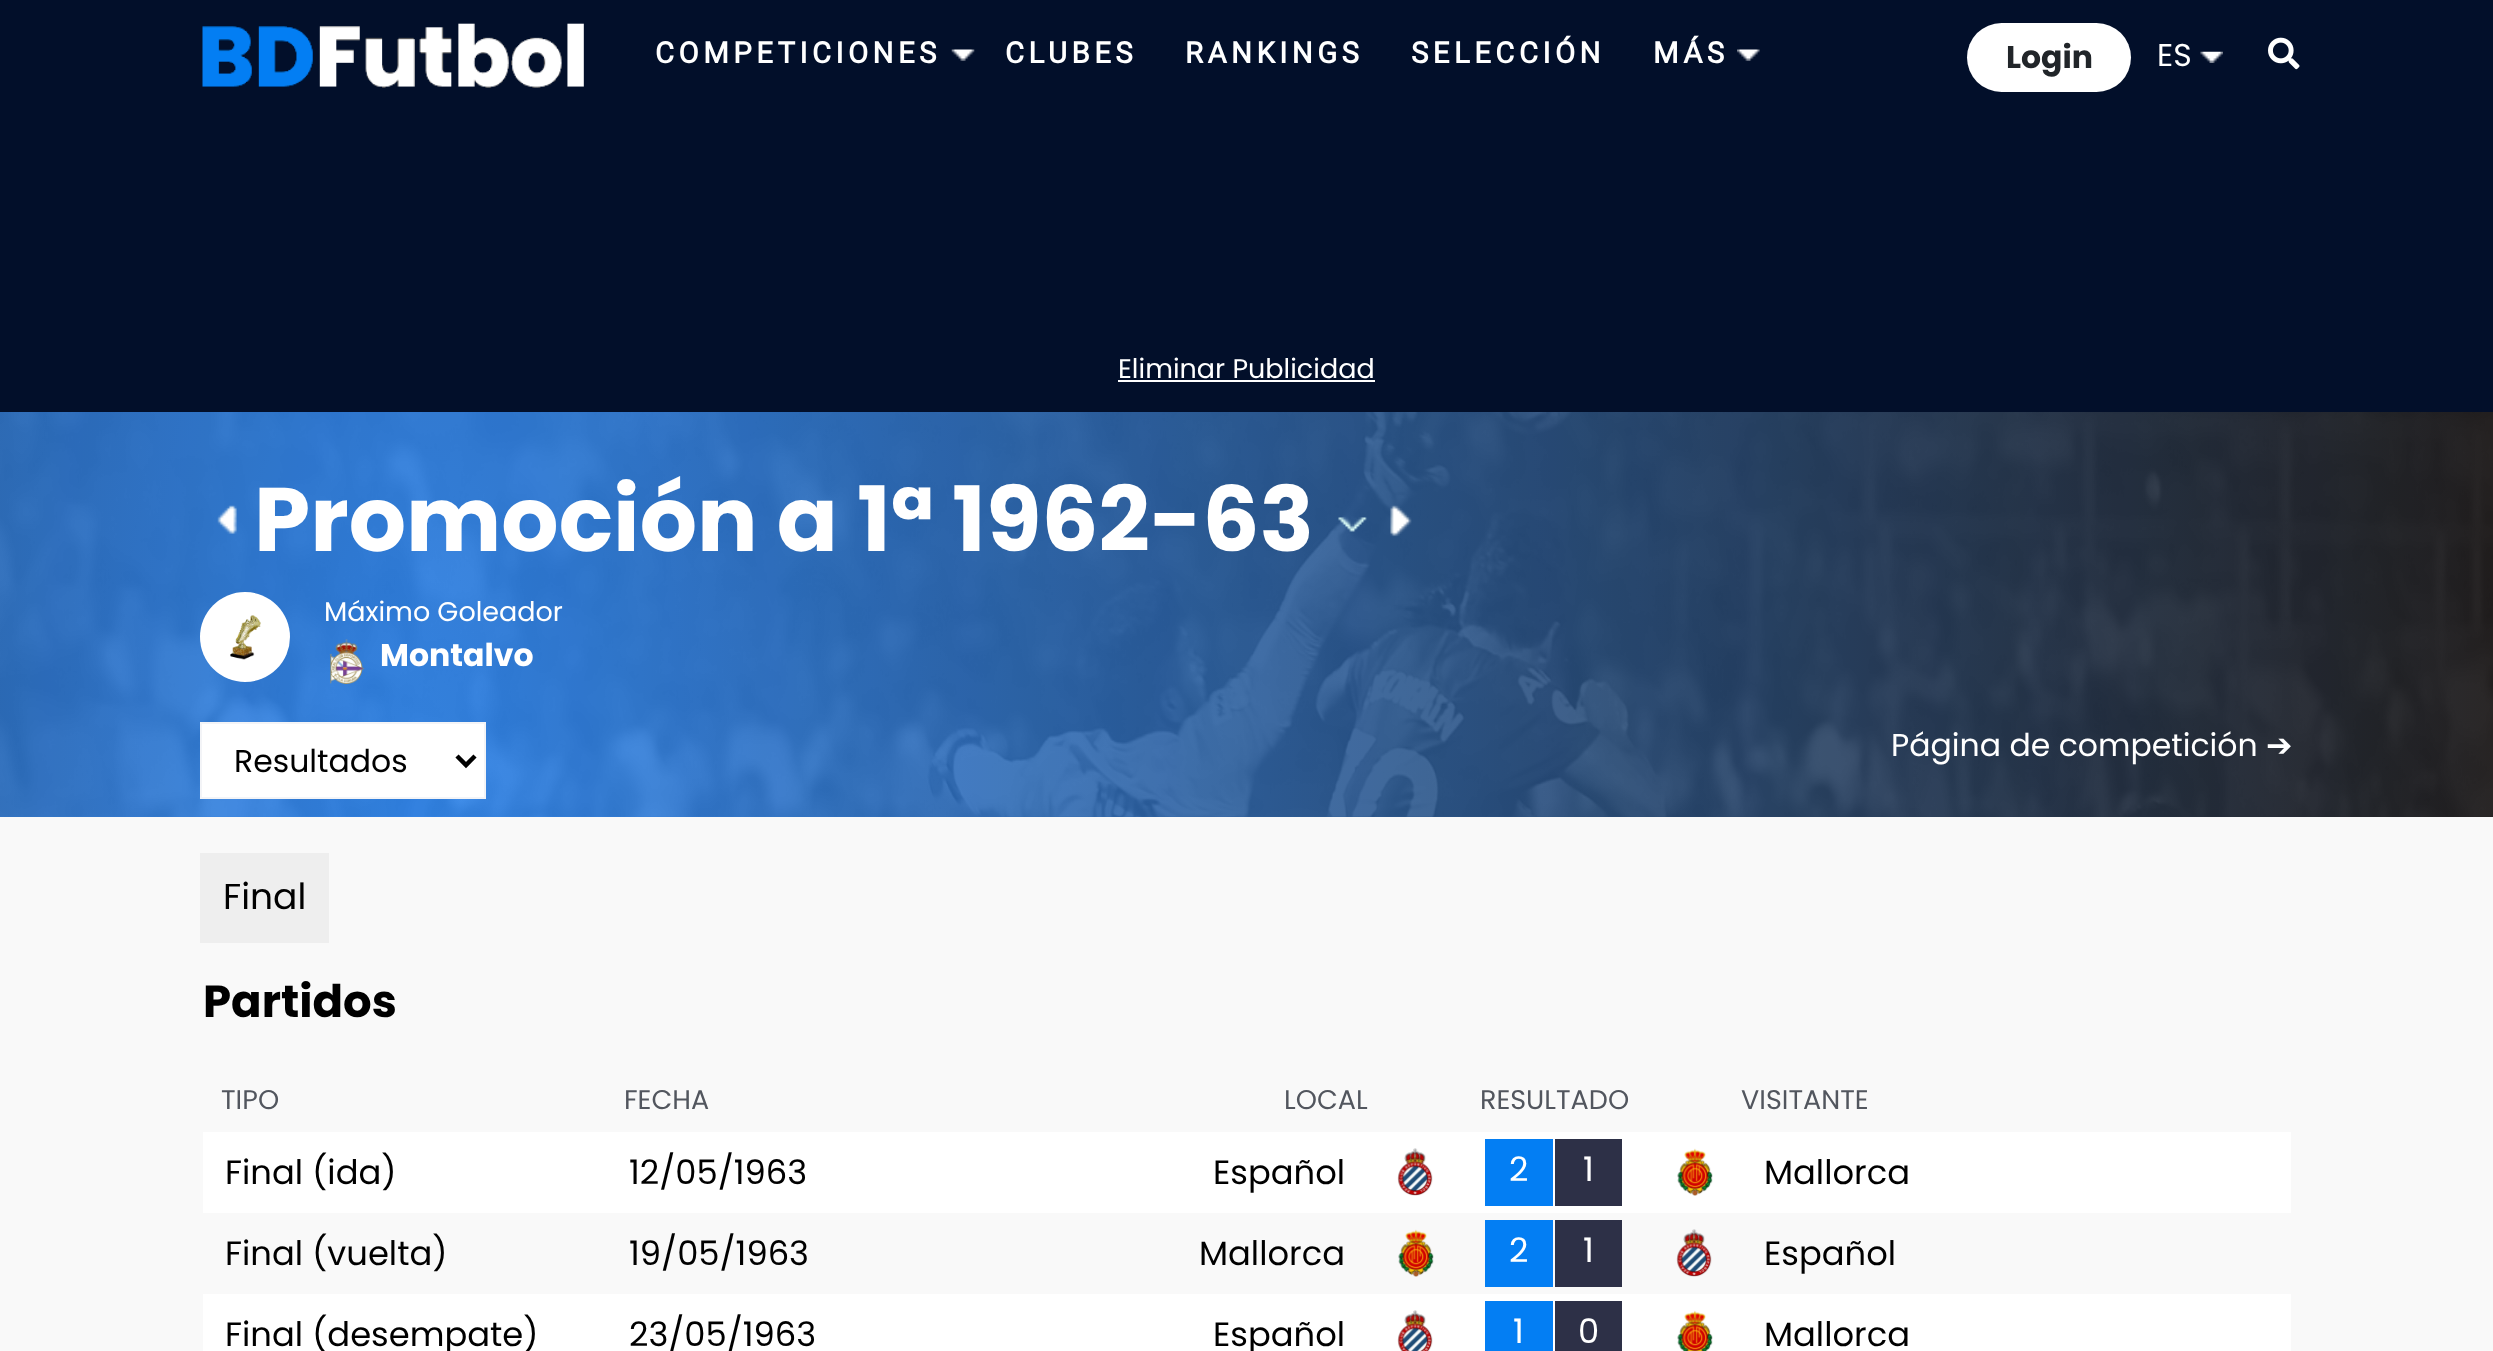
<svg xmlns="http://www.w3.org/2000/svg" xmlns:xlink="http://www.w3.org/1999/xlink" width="2493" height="1351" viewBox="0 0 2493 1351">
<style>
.cls-1{font:bold 29.25px Roboto;letter-spacing:4.5px;fill:#ffffff}
.cls-2{font:bold 31.5px Poppins;fill:#212529}
.cls-3{font:31.5px Poppins;fill:#ffffff}
.cls-4{font:27px Poppins;fill:#ffffff}
.cls-5{font:bold 90px Poppins;fill:#ffffff}
.cls-6{font:bold 31.5px Poppins;fill:#ffffff}
.cls-7{font:31.5px Poppins;fill:#000000}
.cls-8{font:31.5px DejaVu Sans;fill:#ffffff}
.cls-9{font:36px Poppins;fill:#000000}
.cls-10{font:bold 45px Poppins;fill:#000000}
.cls-11{font:27px Poppins;fill:#52565e}
.cls-12{font:33.75px Poppins;fill:#000000}
.cls-13{font:33.75px Poppins;fill:#ffffff}
</style>
<defs>
<radialGradient id="g1" gradientUnits="userSpaceOnUse" cx="0" cy="0" r="1" gradientTransform="matrix(2081 0 0 5470 412 817)"><stop offset="0" stop-color="#0052b4"/><stop offset="0" stop-color="#338af3"/><stop offset="1" stop-color="#221f1f"/></radialGradient>
</defs>
<rect width="100%" height="100%" fill="#f9f9f9"/>
<rect fill="#020f2a" x="0" y="0" width="2493" height="412"/>
<image xlink:href="image0.png" x="202" y="23" width="382" height="65"/>
<image xlink:href="image1.png" x="951" y="49" width="24" height="12"/>
<image xlink:href="image2.png" x="1737" y="49" width="23" height="12"/>
<rect fill="#ffffff" x="1967" y="23" width="164" height="69" rx="34.5"/>
<image xlink:href="image3.png" x="2200" y="51" width="23" height="12"/>
<image xlink:href="image4.png" x="2268" y="37" width="32" height="33"/>
<rect fill="#ffffff" x="1118" y="380" width="257" height="2"/>
<rect fill="url(#g1)" x="0" y="412" width="2493" height="405"/>
<image xlink:href="image5.png" x="0" y="412" width="2493" height="405"/>
<image xlink:href="image6.png" x="217" y="505" width="20" height="29"/>
<image xlink:href="image7.png" x="1338" y="517" width="29" height="15"/>
<image xlink:href="image8.png" x="1390" y="505" width="22" height="32"/>
<circle fill="#ffffff" cx="245" cy="637" r="45"/>
<image xlink:href="image9.png" x="230" y="615" width="31" height="45"/>
<image xlink:href="image10.png" x="329" y="639" width="36" height="45"/>
<rect fill="#ffffff" stroke="#f3f4f7" stroke-width="2" x="201" y="723" width="284" height="75"/>
<path fill="none" stroke="#000000" stroke-width="4.5" d="M457 756L466 765L475 756"/>
<rect fill="#eeeeee" x="200" y="853" width="129" height="90"/>
<rect fill="#ffffff" x="203" y="1132" width="2088" height="81"/>
<image xlink:href="image11.png" x="1397" y="1148" width="36" height="48"/>
<rect fill="#037ef3" x="1485" y="1139" width="68" height="67"/>
<rect fill="#2d3047" x="1555" y="1139" width="67" height="67"/>
<image xlink:href="image12.png" x="1677" y="1148" width="36" height="48"/>
<image xlink:href="image13.png" x="1398" y="1229" width="36" height="48"/>
<rect fill="#037ef3" x="1485" y="1220" width="68" height="67"/>
<rect fill="#2d3047" x="1555" y="1220" width="67" height="67"/>
<image xlink:href="image14.png" x="1676" y="1229" width="36" height="48"/>
<rect fill="#ffffff" x="203" y="1294" width="2088" height="57"/>
<image xlink:href="image15.png" x="1397" y="1310" width="36" height="41"/>
<rect fill="#037ef3" x="1485" y="1301" width="68" height="50"/>
<rect fill="#2d3047" x="1555" y="1301" width="67" height="50"/>
<image xlink:href="image16.png" x="1677" y="1310" width="36" height="41"/>
<text class="cls-1" x="655" y="63">COMPETICIONES</text>
<text class="cls-1" x="1005" y="63">CLUBES</text>
<text class="cls-1" x="1185" y="63">RANKINGS</text>
<text class="cls-1" x="1411" y="63">SELECCIÓN</text>
<text class="cls-1" x="1653" y="63">MÁS</text>
<text class="cls-2" x="2006" y="68">Login</text>
<text class="cls-3" x="2157" y="66">ES</text>
<text class="cls-4" x="1118" y="378">Eliminar Publicidad</text>
<text class="cls-5" x="254" y="551">Promoción a 1ª 1962-63</text>
<text class="cls-4" x="324" y="621">Máximo Goleador</text>
<text class="cls-6" x="380" y="666">Montalvo</text>
<text class="cls-7" x="234" y="772">Resultados</text>
<text class="cls-3" x="1891" y="756">Página de competición</text>
<text class="cls-8" x="2266" y="756">➔</text>
<text class="cls-9" x="223" y="909">Final</text>
<text class="cls-10" x="203" y="1017">Partidos</text>
<text class="cls-11" x="221" y="1109">TIPO</text>
<text class="cls-11" x="624" y="1109">FECHA</text>
<text class="cls-11" x="1284" y="1109">LOCAL</text>
<text class="cls-11" x="1480" y="1109">RESULTADO</text>
<text class="cls-11" x="1741" y="1109">VISITANTE</text>
<text class="cls-12" x="225" y="1184">Final (ida)</text>
<text class="cls-12" x="629" y="1184">12/05/1963</text>
<text class="cls-12" x="1213" y="1184">Español</text>
<text class="cls-13" x="1509" y="1181">2</text>
<text class="cls-13" x="1583" y="1181">1</text>
<text class="cls-12" x="1764" y="1184">Mallorca</text>
<text class="cls-12" x="225" y="1265">Final (vuelta)</text>
<text class="cls-12" x="629" y="1265">19/05/1963</text>
<text class="cls-12" x="1199" y="1265">Mallorca</text>
<text class="cls-13" x="1509" y="1262">2</text>
<text class="cls-13" x="1583" y="1262">1</text>
<text class="cls-12" x="1764" y="1265">Español</text>
<text class="cls-12" x="225" y="1346">Final (desempate)</text>
<text class="cls-12" x="629" y="1346">23/05/1963</text>
<text class="cls-12" x="1213" y="1346">Español</text>
<text class="cls-13" x="1513" y="1343">1</text>
<text class="cls-13" x="1578" y="1343">0</text>
<text class="cls-12" x="1764" y="1346">Mallorca</text>
</svg>
